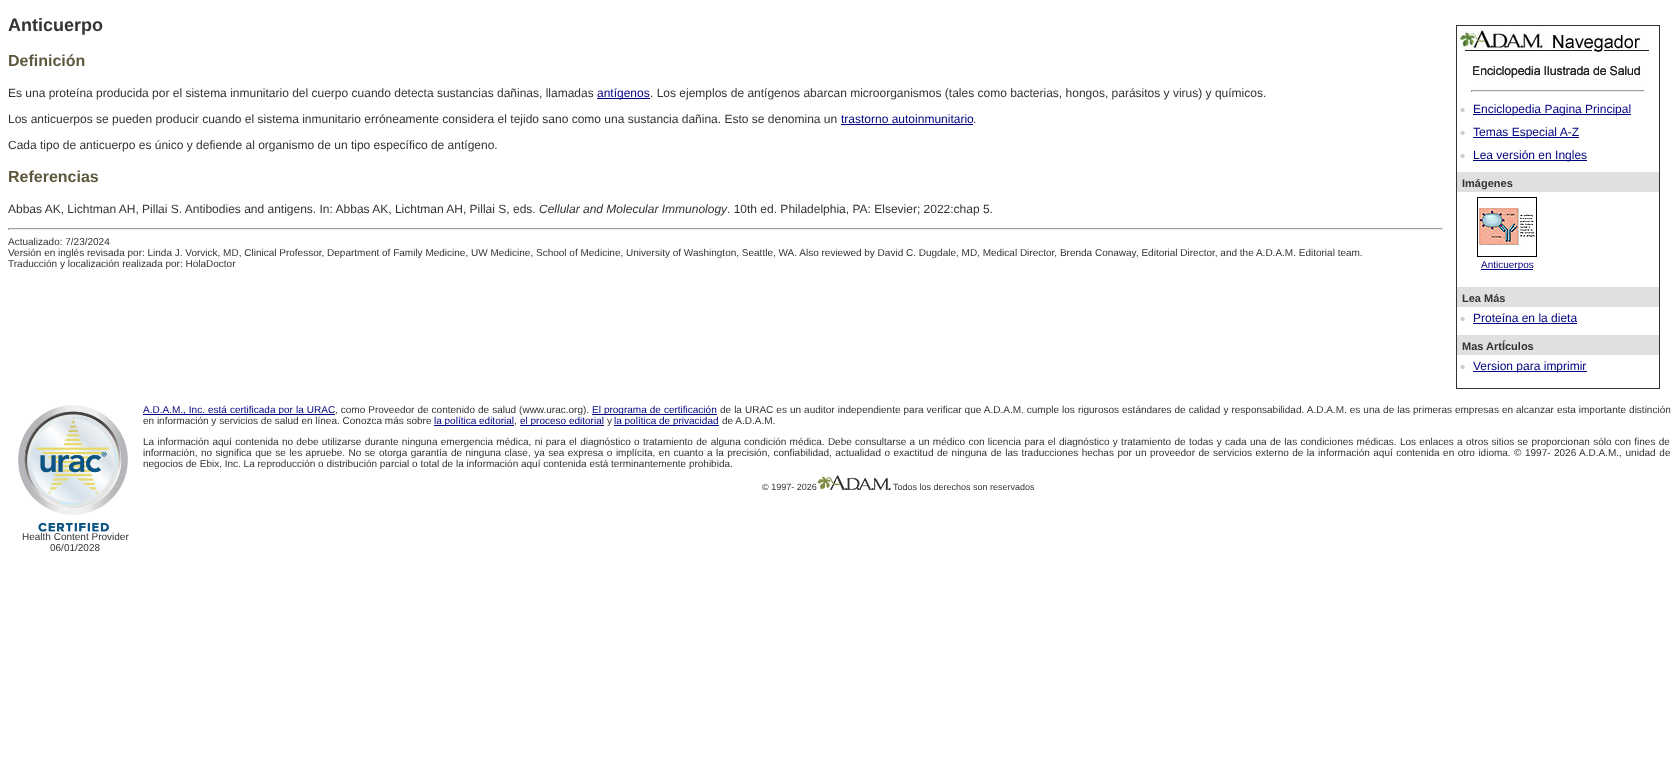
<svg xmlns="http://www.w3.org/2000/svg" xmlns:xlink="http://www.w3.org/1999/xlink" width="1678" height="765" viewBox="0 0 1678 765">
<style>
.cls-1{font:bold 18px Liberation Sans;fill:#333333}
.cls-2{font:bold 16px Liberation Sans;fill:#5e583e}
.cls-3{font:12px Liberation Sans;fill:#333333}
.cls-4{font:12px Liberation Sans;fill:#000080}
.cls-5{font:15px Liberation Sans;fill:#cccccc}
.cls-6{font:bold 11px Liberation Sans;fill:#333333}
.cls-7{font:10px Liberation Sans;fill:#000080}
.cls-8{font:italic 12px Liberation Sans;fill:#333333}
.cls-9{font:10px Liberation Sans;fill:#333333}
.cls-10{font:9px Liberation Sans;fill:#333333}
</style>
<rect width="100%" height="100%" fill="#ffffff"/>
<rect fill="#000080" x="597" y="98" width="53" height="1"/>
<rect fill="#000080" x="841" y="124" width="132" height="1"/>
<rect fill="none" stroke="#333333" x="1456.5" y="25.5" width="203" height="363"/>
<image xlink:href="image0.png" x="1457" y="26" width="192" height="30"/>
<image xlink:href="image1.png" x="1473" y="66" width="168" height="16"/>
<rect fill="#9f9f9f" x="1471" y="90" width="174" height="1"/>
<rect fill="#eeeeee" x="1644" y="90" width="1" height="2"/>
<rect fill="#eeeeee" x="1471" y="91" width="174" height="1"/>
<rect fill="#9f9f9f" x="1471" y="90" width="1" height="2"/>
<rect fill="#000080" x="1473" y="114" width="158" height="1"/>
<rect fill="#000080" x="1473" y="137" width="106" height="1"/>
<rect fill="#000080" x="1473" y="160" width="114" height="1"/>
<rect fill="#e0e0e0" x="1457" y="172" width="202" height="20"/>
<image xlink:href="image2.png" x="1477" y="197" width="60" height="60"/>
<rect fill="#000080" x="1481" y="269" width="52" height="1"/>
<rect fill="#e0e0e0" x="1457" y="287" width="202" height="20"/>
<rect fill="#000080" x="1473" y="323" width="104" height="1"/>
<rect fill="#e0e0e0" x="1457" y="335" width="202" height="20"/>
<rect fill="#000080" x="1473" y="371" width="114" height="1"/>
<rect fill="#9f9f9f" x="8" y="228" width="1435" height="1"/>
<rect fill="#eeeeee" x="1442" y="228" width="1" height="2"/>
<rect fill="#eeeeee" x="8" y="229" width="1435" height="1"/>
<rect fill="#9f9f9f" x="8" y="228" width="1" height="2"/>
<rect fill="#000080" x="143" y="414" width="192" height="1"/>
<rect fill="#000080" x="592" y="414" width="125" height="1"/>
<rect fill="#000080" x="434" y="425" width="80" height="1"/>
<rect fill="#000080" x="520" y="425" width="84" height="1"/>
<rect fill="#000080" x="614" y="425" width="105" height="1"/>
<image xlink:href="image3.png" x="18" y="405" width="110" height="127"/>
<image xlink:href="image4.png" x="817" y="475" width="74" height="15"/>
<text class="cls-1" x="8" y="31">Anticuerpo</text>
<text class="cls-2" x="8" y="66">Definición</text>
<text class="cls-3" x="8" y="97">Es una proteína producida por el sistema inmunitario del cuerpo cuando detecta sustancias dañinas, llamadas</text>
<text class="cls-4" x="597" y="97">antígenos</text>
<text class="cls-3" x="650" y="97">. Los ejemplos de antígenos abarcan microorganismos (tales como bacterias, hongos, parásitos y virus) y químicos.</text>
<text class="cls-3" x="8" y="123">Los anticuerpos se pueden producir cuando el sistema inmunitario erróneamente considera el tejido sano como una sustancia dañina. Esto se denomina un</text>
<text class="cls-4" x="841" y="123">trastorno autoinmunitario</text>
<text class="cls-3" x="973" y="123">.</text>
<text class="cls-5" x="1460" y="115">•</text>
<text class="cls-4" x="1473" y="113">Enciclopedia Pagina Principal</text>
<text class="cls-5" x="1460" y="138">•</text>
<text class="cls-4" x="1473" y="136">Temas Especial A-Z</text>
<text class="cls-5" x="1460" y="161">•</text>
<text class="cls-4" x="1473" y="159">Lea versión en Ingles</text>
<text class="cls-6" x="1462" y="187">Imágenes</text>
<text class="cls-7" x="1481" y="268">Anticuerpos</text>
<text class="cls-6" x="1462" y="302">Lea Más</text>
<text class="cls-5" x="1460" y="324">•</text>
<text class="cls-4" x="1473" y="322">Proteína en la dieta</text>
<text class="cls-6" x="1462" y="350">Mas ArtÍculos</text>
<text class="cls-5" x="1460" y="372">•</text>
<text class="cls-4" x="1473" y="370">Version para imprimir</text>
<text class="cls-3" x="8" y="149">Cada tipo de anticuerpo es único y defiende al organismo de un tipo específico de antígeno.</text>
<text class="cls-2" x="8" y="182">Referencias</text>
<text class="cls-3" x="8" y="213">Abbas AK, Lichtman AH, Pillai S. Antibodies and antigens. In: Abbas AK, Lichtman AH, Pillai S, eds.</text>
<text class="cls-8" x="539" y="213">Cellular and Molecular Immunology</text>
<text class="cls-3" x="727" y="213">. 10th ed. Philadelphia, PA: Elsevier; 2022:chap 5.</text>
<text class="cls-9"><tspan x="8" y="245">Actualizado: 7/23/2024</tspan><tspan x="8" y="256">Versión en inglés revisada por: Linda J. Vorvick, MD, Clinical Professor, Department of Family Medicine, UW Medicine, School of Medicine, University of Washington, Seattle, WA. Also reviewed by David C. Dugdale, MD, Medical Director, Brenda Conaway, Editorial Director, and the A.D.A.M. Editorial team.</tspan><tspan x="8" y="267">Traducción y localización realizada por: HolaDoctor</tspan></text>
<text class="cls-7" x="143" y="413" word-spacing="0.25">A.D.A.M., Inc. está certificada por la URAC</text>
<text class="cls-9" x="335" y="413" word-spacing="0.25">, como Proveedor de contenido de salud (www.urac.org).</text>
<text class="cls-7" x="592" y="413" word-spacing="0.25">El programa de certificación</text>
<text class="cls-9" x="720" y="413" word-spacing="0.25">de la URAC es un auditor independiente para verificar que A.D.A.M. cumple los rigurosos estándares de calidad y responsabilidad. A.D.A.M. es una de las primeras empresas en alcanzar esta importante distinción</text>
<text class="cls-9" x="143" y="424">en información y servicios de salud en línea. Conozca más sobre</text>
<text class="cls-7" x="434" y="424">la política editorial</text>
<text class="cls-9" x="514" y="424">,</text>
<text class="cls-7" x="520" y="424">el proceso editorial</text>
<text class="cls-9" x="607" y="424">y</text>
<text class="cls-7" x="614" y="424">la política de privacidad</text>
<text class="cls-9" x="722" y="424">de A.D.A.M.</text>
<text class="cls-9" x="22" y="540">Health Content Provider</text>
<text class="cls-9" x="50" y="551">06/01/2028</text>
<text class="cls-9"><tspan x="143" y="445" word-spacing="0.53">La información aquí contenida no debe utilizarse durante ninguna emergencia médica, ni para el diagnóstico o tratamiento de alguna condición médica. Debe consultarse a un médico con licencia para el diagnóstico y tratamiento de todas y cada una de las condiciones médicas. Los enlaces a otros sitios se proporcionan sólo con fines de</tspan><tspan x="143" y="456" word-spacing="0.7">información, no significa que se les apruebe. No se otorga garantía de ninguna clase, ya sea expresa o implícita, en cuanto a la precisión, confiabilidad, actualidad o exactitud de ninguna de las traducciones hechas por un proveedor de servicios externo de la información aquí contenida en otro idioma. © 1997-</tspan></text>
<text class="cls-9" x="1554" y="456">2026</text>
<text class="cls-9" x="1579" y="456" word-spacing="1">A.D.A.M., unidad de</text>
<text class="cls-9" x="143" y="467">negocios de Ebix, Inc. La reproducción o distribución parcial o total de la información aquí contenida está terminantemente prohibida.</text>
<text class="cls-10" x="762" y="490">© 1997- 2026</text>
<text class="cls-10" x="893" y="490">Todos los derechos son reservados</text>
</svg>
